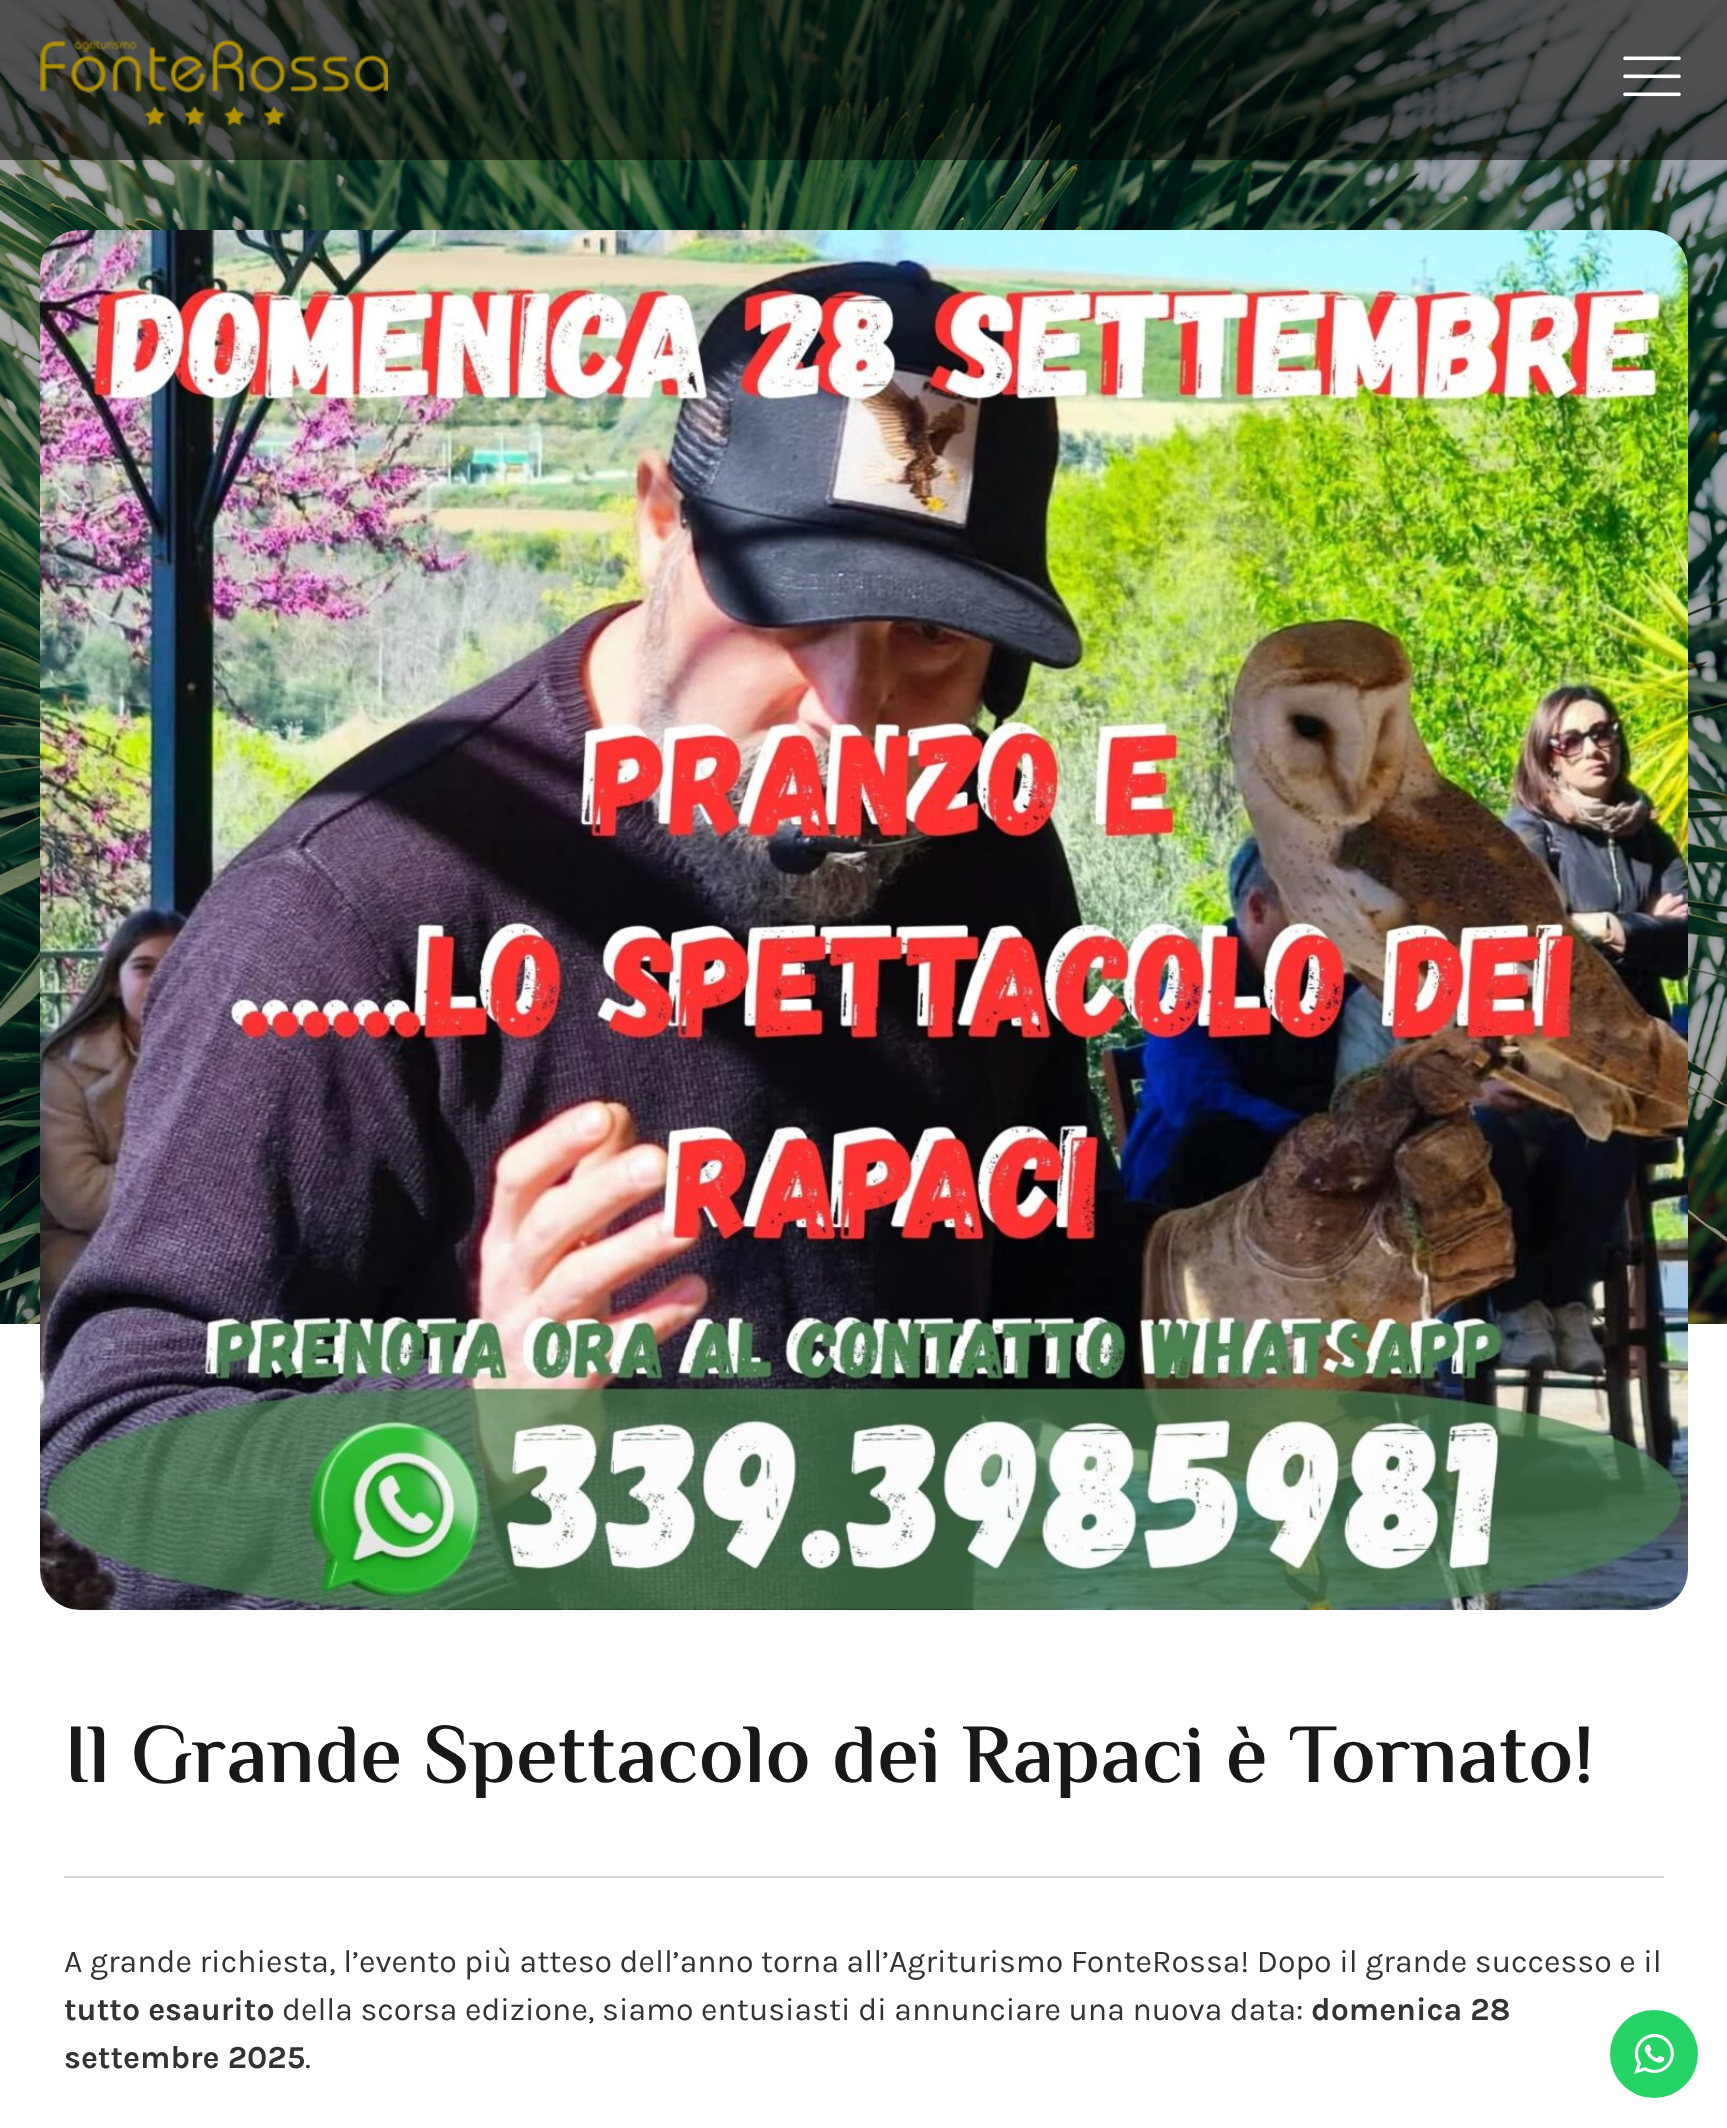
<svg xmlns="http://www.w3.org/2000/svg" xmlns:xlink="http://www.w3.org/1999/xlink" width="1727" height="2128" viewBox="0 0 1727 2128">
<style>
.cls-1{font:600 84px El Messiri;fill:#181818}
.cls-2{font:32px Karla;fill:#333333}
.cls-3{font:bold 32px Karla;fill:#333333}
</style>
<rect width="100%" height="100%" fill="#ffffff"/>
<image xlink:href="image2.png" x="0" y="0" width="1727" height="1324"/>
<rect fill="#000000" fill-opacity="0.52" x="0" y="0" width="1727" height="160"/>
<image xlink:href="image0.png" x="40" y="39" width="348" height="87"/>
<image xlink:href="image1.png" x="1623" y="56" width="58" height="41"/>
<image xlink:href="image3.png" x="40" y="230" width="1648" height="1380"/>
<rect fill="#d8d8d8" x="64" y="1876" width="1600" height="2"/>
<circle fill="#25d366" cx="1654" cy="2054" r="44"/>
<image xlink:href="image4.png" x="1634" y="2034" width="40" height="40"/>
<text class="cls-1" x="64" y="1782">Il Grande Spettacolo dei Rapaci è Tornato!</text>
<text class="cls-2" x="64" y="1972">A grande richiesta, l’evento più atteso dell’anno torna all’Agriturismo FonteRossa! Dopo il grande successo e il</text>
<text class="cls-3" x="64" y="2020">tutto esaurito</text>
<text class="cls-2" x="282" y="2020">della scorsa edizione, siamo entusiasti di annunciare una nuova data:</text>
<text class="cls-3" x="1311" y="2020">domenica 28</text>
<text class="cls-3" x="64" y="2068">settembre 2025</text>
<text class="cls-2" x="305" y="2068">.</text>
</svg>
